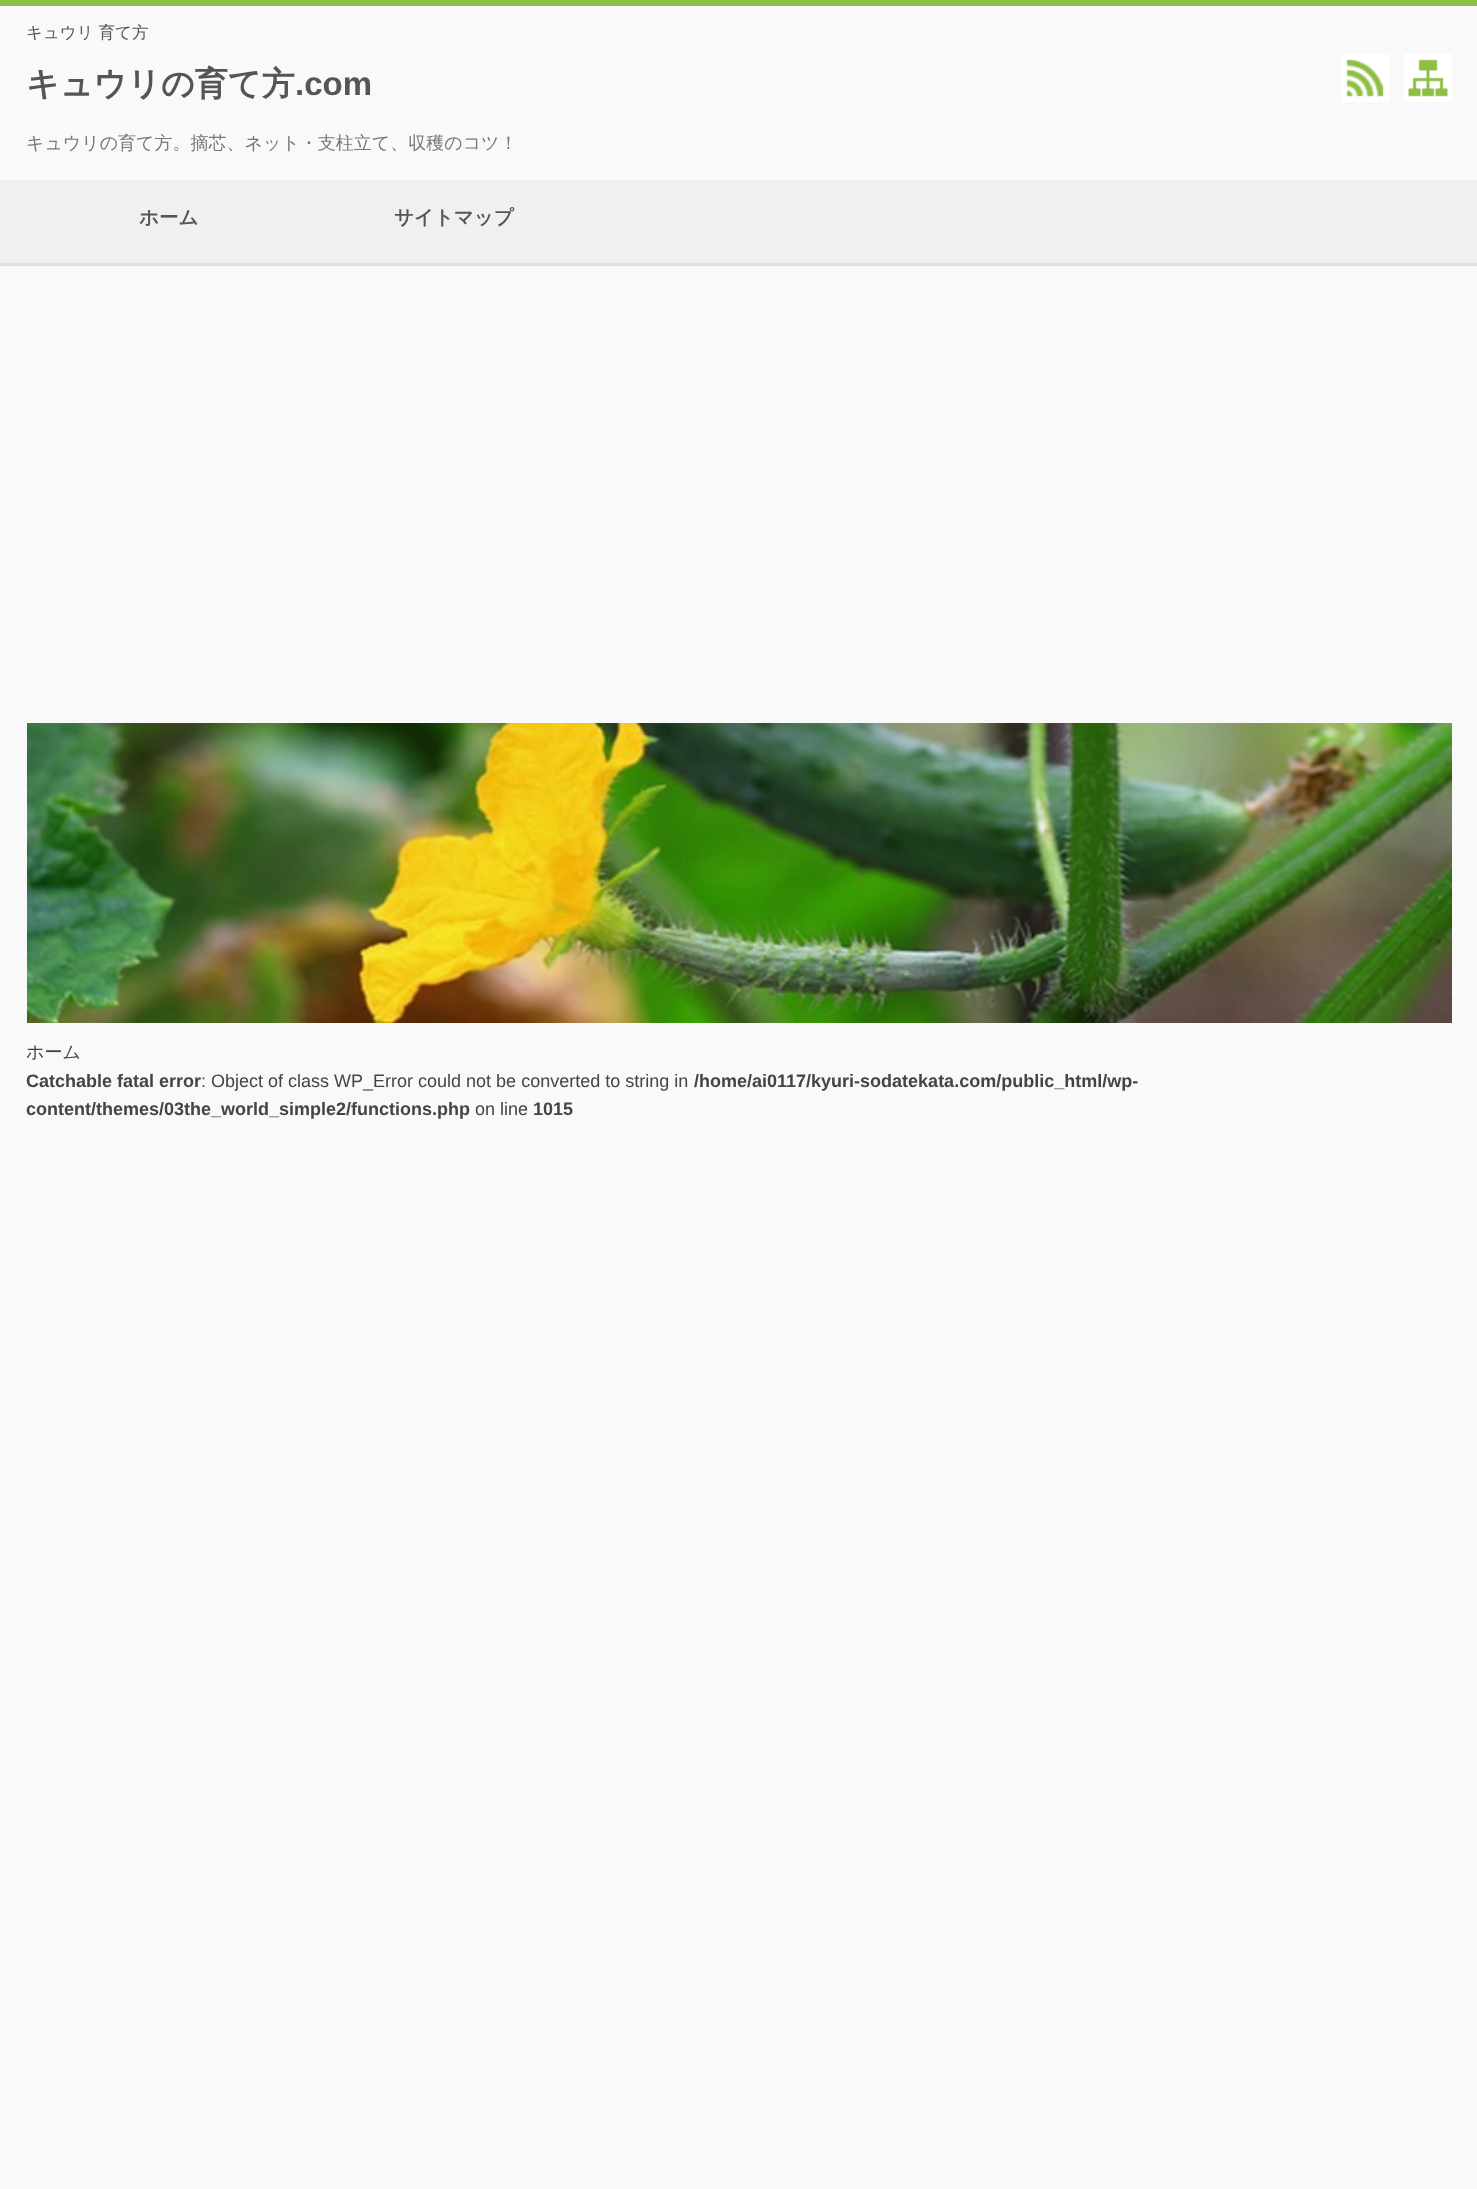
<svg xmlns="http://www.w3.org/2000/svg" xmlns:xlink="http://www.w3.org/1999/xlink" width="1477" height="2189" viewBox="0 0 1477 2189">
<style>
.cls-1{font:500 16.5px WenQuanYi Zen Hei;fill:#555555}
.cls-2{font:bold 33px WenQuanYi Zen Hei;fill:#555555}
.cls-3{font:bold 33px Liberation Sans;fill:#555555}
.cls-4{font:500 18px WenQuanYi Zen Hei;fill:#777777}
.cls-5{font:bold 19.5px WenQuanYi Zen Hei;fill:#555555}
.cls-6{font:500 18px WenQuanYi Zen Hei;fill:#444444}
.cls-7{font:bold 18px Liberation Sans;fill:#444444}
.cls-8{font:18px Liberation Sans;fill:#444444}
</style>
<rect width="100%" height="100%" fill="#f9f9f9"/>
<rect fill="#8ebf45" x="0" y="0" width="1477" height="6"/>
<image xlink:href="image0.png" x="1341" y="54" width="48" height="48"/>
<image xlink:href="image1.png" x="1404" y="54" width="48" height="48"/>
<rect fill="#f0f0f0" x="0" y="180" width="1477" height="83"/>
<rect fill="#e0e0e0" x="0" y="263" width="1477" height="3"/>
<image xlink:href="image2.png" x="27" y="723" width="1425" height="300"/>
<text class="cls-1" x="26" y="38">キュウリ 育て方</text>
<text class="cls-2" x="26" y="95">キュウリの育て方</text>
<text class="cls-3" x="295" y="95">.com</text>
<text class="cls-4" x="26" y="149">キュウリの育て方。摘芯、ネット・支柱立て、収穫のコツ！</text>
<text class="cls-5" x="139" y="224">ホーム</text>
<text class="cls-5" x="394" y="224">サイトマップ</text>
<text class="cls-6" x="26" y="1058">ホーム</text>
<text class="cls-7" x="26" y="1087">Catchable fatal error</text>
<text class="cls-8" x="201" y="1087">: Object of class WP_Error could not be converted to string in</text>
<text class="cls-7" x="694" y="1087">/home/ai0117/kyuri-sodatekata.com/public_html/wp-</text>
<text class="cls-7" x="26" y="1115">content/themes/03the_world_simple2/functions.php</text>
<text class="cls-8" x="475" y="1115">on line</text>
<text class="cls-7" x="533" y="1115">1015</text>
</svg>
